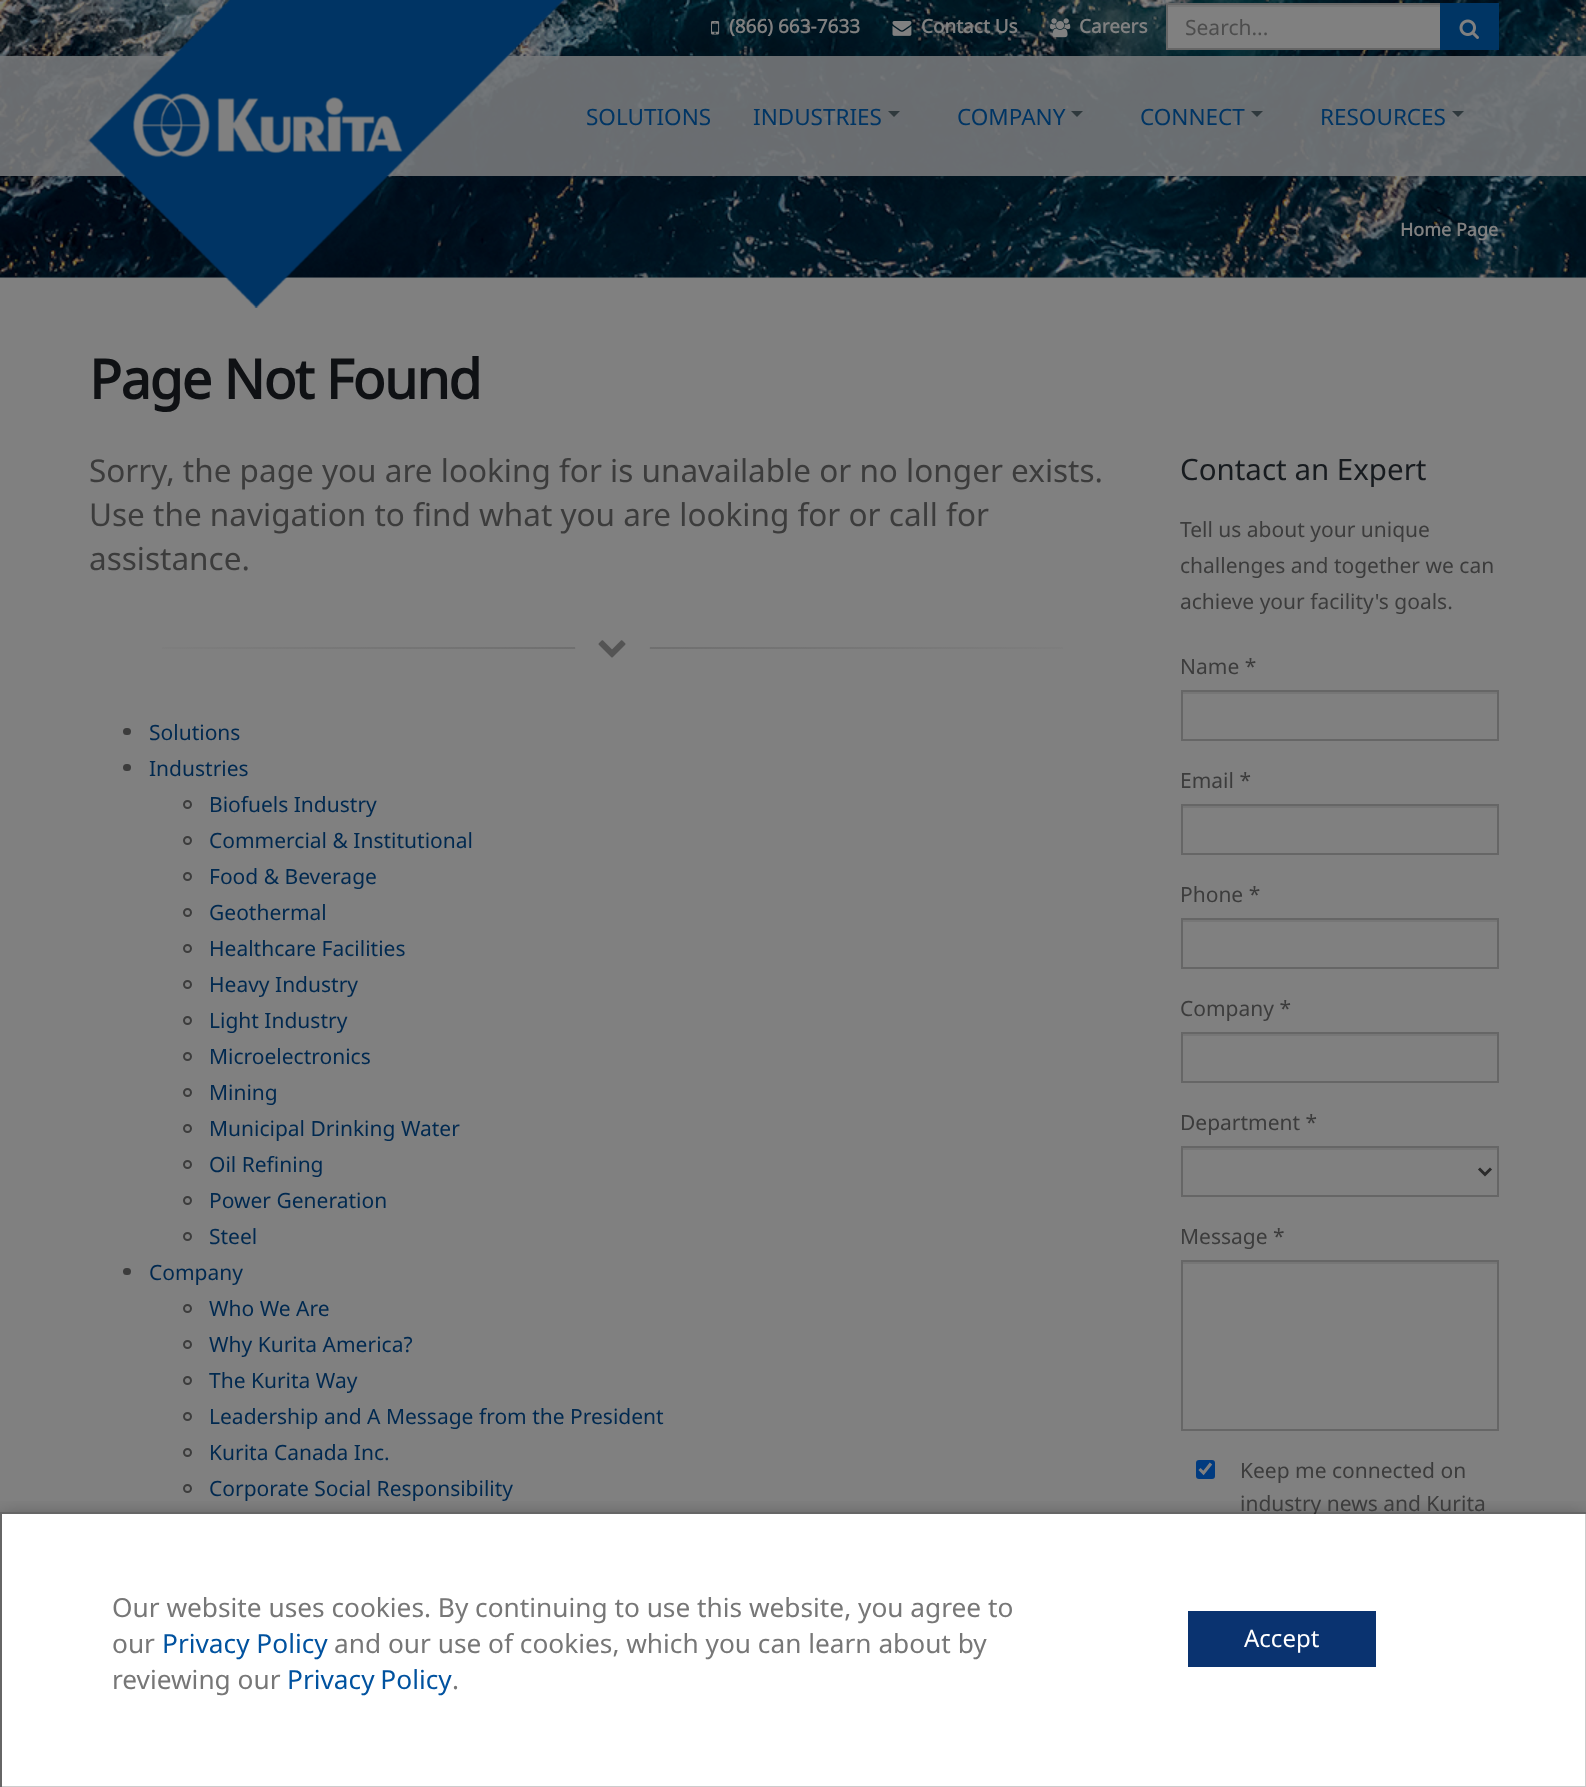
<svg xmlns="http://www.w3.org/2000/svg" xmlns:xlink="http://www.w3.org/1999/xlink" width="1586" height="1787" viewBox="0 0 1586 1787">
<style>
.cls-1{font:bold 19px Noto Sans;fill:#808080}
.cls-2{font:21px Noto Sans;fill:#4d4d4d}
.cls-3{font:22.5px Noto Sans;fill:#003564}
.cls-4{font:bold 18px Noto Sans;fill:#808080}
.cls-5{font:bold 54.5px Noto Sans;letter-spacing:-1.5px;fill:#0f1114}
.cls-6{font:31.5px Noto Sans;fill:#3c3c3c}
.cls-7{font:21px Noto Sans;fill:#002950}
.cls-8{font:29.5px Noto Sans;fill:#171b1f}
.cls-9{font:21px Noto Sans;fill:#3c3c3c}
.cls-10{font:26.25px Noto Sans;fill:#777777}
.cls-11{font:26.25px Noto Sans;fill:#00529f}
.cls-12{font:24px Noto Sans;fill:#ffffff}
</style>
<defs>
<linearGradient id="g1" gradientUnits="userSpaceOnUse" x1="89" y1="647" x2="1136" y2="647"><stop offset="0" stop-color="#808080"/><stop offset="0.5" stop-color="#6e6e6e"/><stop offset="1" stop-color="#808080"/></linearGradient>
<clipPath id="clip1"><rect x="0" y="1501" width="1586" height="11"/></clipPath>
</defs>
<rect width="100%" height="100%" fill="#808080"/>
<rect fill="#75787a" x="0" y="277" width="1586" height="1"/>
<image xlink:href="image5.png" x="0" y="0" width="1586" height="278"/>
<image xlink:href="image0.png" x="711" y="21" width="9" height="14"/>
<image xlink:href="image1.png" x="892" y="21" width="20" height="15"/>
<image xlink:href="image2.png" x="1050" y="18" width="21" height="20"/>
<rect fill="#808080" x="1168" y="7" width="272" height="41"/>
<rect fill="#767676" x="1167" y="5" width="273" height="2"/>
<rect fill="none" stroke="#666666" stroke-width="2" x="1167" y="4" width="274" height="45"/>
<rect fill="#003564" x="1440" y="3" width="59" height="47"/>
<image xlink:href="image3.png" x="1459" y="19" width="20" height="20"/>
<rect fill="#75787a" fill-opacity="0.9" x="0" y="56" width="1586" height="120"/>
<image xlink:href="image4.png" x="88" y="0" width="477" height="308"/>
<path fill="#2f393d" d="M888 111H900L894 117Z"/>
<path fill="#2f393d" d="M1071 111H1083L1077 117Z"/>
<path fill="#2f393d" d="M1251 111H1263L1257 117Z"/>
<path fill="#2f393d" d="M1452 111H1464L1458 117Z"/>
<rect fill="url(#g1)" x="162" y="647" width="901" height="2"/>
<circle fill="#808080" cx="612.5" cy="646.5" r="37.5"/>
<image xlink:href="image6.png" x="598" y="640" width="28" height="18"/>
<rect fill="#3c3c3c" x="123" y="728" width="8" height="7" rx="3.5"/>
<rect fill="#3c3c3c" x="123" y="764" width="8" height="7" rx="3.5"/>
<circle fill="none" stroke="#3c3c3c" stroke-width="2" cx="187.5" cy="804.5" r="3.5"/>
<circle fill="none" stroke="#3c3c3c" stroke-width="2" cx="187.5" cy="840.5" r="3.5"/>
<circle fill="none" stroke="#3c3c3c" stroke-width="2" cx="187.5" cy="876.5" r="3.5"/>
<circle fill="none" stroke="#3c3c3c" stroke-width="2" cx="187.5" cy="912.5" r="3.5"/>
<circle fill="none" stroke="#3c3c3c" stroke-width="2" cx="187.5" cy="948.5" r="3.5"/>
<circle fill="none" stroke="#3c3c3c" stroke-width="2" cx="187.5" cy="984.5" r="3.5"/>
<circle fill="none" stroke="#3c3c3c" stroke-width="2" cx="187.5" cy="1020.5" r="3.5"/>
<circle fill="none" stroke="#3c3c3c" stroke-width="2" cx="187.5" cy="1056.5" r="3.5"/>
<circle fill="none" stroke="#3c3c3c" stroke-width="2" cx="187.5" cy="1092.5" r="3.5"/>
<circle fill="none" stroke="#3c3c3c" stroke-width="2" cx="187.5" cy="1128.5" r="3.5"/>
<circle fill="none" stroke="#3c3c3c" stroke-width="2" cx="187.5" cy="1164.5" r="3.5"/>
<circle fill="none" stroke="#3c3c3c" stroke-width="2" cx="187.5" cy="1200.5" r="3.5"/>
<circle fill="none" stroke="#3c3c3c" stroke-width="2" cx="187.5" cy="1236.5" r="3.5"/>
<rect fill="#3c3c3c" x="123" y="1268" width="8" height="7" rx="3.5"/>
<circle fill="none" stroke="#3c3c3c" stroke-width="2" cx="187.5" cy="1308.5" r="3.5"/>
<circle fill="none" stroke="#3c3c3c" stroke-width="2" cx="187.5" cy="1344.5" r="3.5"/>
<circle fill="none" stroke="#3c3c3c" stroke-width="2" cx="187.5" cy="1380.5" r="3.5"/>
<circle fill="none" stroke="#3c3c3c" stroke-width="2" cx="187.5" cy="1416.5" r="3.5"/>
<circle fill="none" stroke="#3c3c3c" stroke-width="2" cx="187.5" cy="1452.5" r="3.5"/>
<circle fill="none" stroke="#3c3c3c" stroke-width="2" cx="187.5" cy="1488.5" r="3.5"/>
<rect fill="#767676" x="1182" y="692" width="315" height="2"/>
<rect fill="none" stroke="#666666" stroke-width="2" x="1182" y="691" width="316" height="49"/>
<rect fill="#767676" x="1182" y="806" width="315" height="2"/>
<rect fill="none" stroke="#666666" stroke-width="2" x="1182" y="805" width="316" height="49"/>
<rect fill="#767676" x="1182" y="920" width="315" height="2"/>
<rect fill="none" stroke="#666666" stroke-width="2" x="1182" y="919" width="316" height="49"/>
<rect fill="#767676" x="1182" y="1034" width="315" height="2"/>
<rect fill="none" stroke="#666666" stroke-width="2" x="1182" y="1033" width="316" height="49"/>
<rect fill="#767676" x="1182" y="1148" width="315" height="2"/>
<rect fill="none" stroke="#666666" stroke-width="2" x="1182" y="1147" width="316" height="49"/>
<path fill="none" stroke="#2b2b2b" stroke-width="3" d="M1479 1168.5L1485 1174.5L1491 1168.5"/>
<rect fill="#767676" x="1182" y="1262" width="315" height="2"/>
<rect fill="none" stroke="#666666" stroke-width="2" x="1182" y="1261" width="316" height="169"/>
<rect fill="#003b80" x="1196" y="1460" width="19" height="19" rx="3"/>
<path fill="none" stroke="#808080" stroke-width="3.1" d="M1199.5 1469L1203.5 1473L1211 1463.5"/>
<g clip-path="url(#clip1)">
<rect fill="#000000" fill-opacity="0.5" filter="blur(11px)" x="0" y="1520" width="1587" height="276"/>
</g>
<text class="cls-1" x="729" y="33">(866) 663-7633</text>
<text class="cls-1" x="921" y="33">Contact Us</text>
<text class="cls-1" x="1079" y="33">Careers</text>
<text class="cls-2" x="1185" y="35">Search...</text>
<text class="cls-3" x="586" y="125">SOLUTIONS</text>
<text class="cls-3" x="753" y="125">INDUSTRIES</text>
<text class="cls-3" x="957" y="125">COMPANY</text>
<text class="cls-3" x="1140" y="125">CONNECT</text>
<text class="cls-3" x="1320" y="125">RESOURCES</text>
<text class="cls-4" x="1400" y="236">Home Page</text>
<text class="cls-5" x="89" y="399">Page Not Found</text>
<text class="cls-6"><tspan x="89" y="482">Sorry, the page you are looking for is unavailable or no longer exists.</tspan><tspan x="89" y="526">Use the navigation to find what you are looking for or call for</tspan><tspan x="89" y="570">assistance.</tspan></text>
<text class="cls-7"><tspan x="149" y="740">Solutions</tspan><tspan x="149" y="776">Industries</tspan></text>
<text class="cls-7"><tspan x="209" y="812">Biofuels Industry</tspan><tspan x="209" y="848">Commercial &amp; Institutional</tspan><tspan x="209" y="884">Food &amp; Beverage</tspan><tspan x="209" y="920">Geothermal</tspan><tspan x="209" y="956">Healthcare Facilities</tspan><tspan x="209" y="992">Heavy Industry</tspan><tspan x="209" y="1028">Light Industry</tspan><tspan x="209" y="1064">Microelectronics</tspan><tspan x="209" y="1100">Mining</tspan><tspan x="209" y="1136">Municipal Drinking Water</tspan><tspan x="209" y="1172">Oil Refining</tspan><tspan x="209" y="1208">Power Generation</tspan><tspan x="209" y="1244">Steel</tspan></text>
<text class="cls-7" x="149" y="1280">Company</text>
<text class="cls-7"><tspan x="209" y="1316">Who We Are</tspan><tspan x="209" y="1352">Why Kurita America?</tspan><tspan x="209" y="1388">The Kurita Way</tspan><tspan x="209" y="1424">Leadership and A Message from the President</tspan><tspan x="209" y="1460">Kurita Canada Inc.</tspan><tspan x="209" y="1496">Corporate Social Responsibility</tspan></text>
<text class="cls-8" x="1180" y="480">Contact an Expert</text>
<text class="cls-9"><tspan x="1180" y="537">Tell us about your unique</tspan><tspan x="1180" y="573">challenges and together we can</tspan><tspan x="1180" y="609">achieve your facility's goals.</tspan></text>
<text class="cls-9" x="1180" y="674">Name *</text>
<text class="cls-9" x="1180" y="788">Email *</text>
<text class="cls-9" x="1180" y="902">Phone *</text>
<text class="cls-9" x="1180" y="1016">Company *</text>
<text class="cls-9" x="1180" y="1130">Department *</text>
<text class="cls-9" x="1180" y="1244">Message *</text>
<text class="cls-9"><tspan x="1240" y="1478">Keep me connected on</tspan><tspan x="1240" y="1511">industry news and Kurita</tspan></text>
<rect fill="#ffffff" x="2" y="1514" width="1584" height="273"/>
<rect fill="none" stroke="#000000" stroke-opacity="0.2" stroke-width="2" x="1" y="1513" width="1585" height="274"/>
<text class="cls-10"><tspan x="112" y="1617">Our website uses cookies. By continuing to use this website, you agree to</tspan><tspan x="112" y="1653">our</tspan></text>
<text class="cls-11" x="162" y="1653">Privacy Policy</text>
<text class="cls-10" x="334" y="1653">and our use of cookies, which you can learn about by</text>
<text class="cls-10" x="112" y="1689">reviewing our</text>
<text class="cls-11" x="287" y="1689" word-spacing="-1">Privacy Policy</text>
<text class="cls-10" x="452" y="1689">.</text>
<rect fill="#0a3370" x="1188" y="1611" width="188" height="56"/>
<text class="cls-12" x="1244" y="1647">Accept</text>
</svg>
